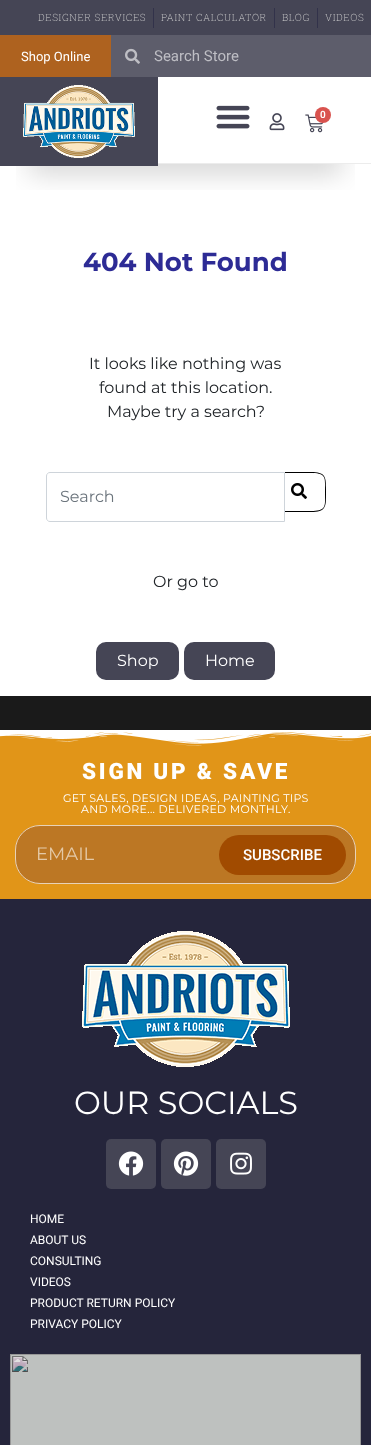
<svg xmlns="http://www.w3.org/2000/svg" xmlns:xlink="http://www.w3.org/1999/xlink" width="371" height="1445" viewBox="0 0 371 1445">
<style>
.cls-1{font:200 10px Roboto Slab;letter-spacing:0.6px;fill:#cfcfcf}
.cls-2{font:13px Roboto;fill:#ffffff}
.cls-3{font:15px Roboto;fill:#bebec4}
.cls-4{font:600 10px Roboto;fill:#ffffff}
.cls-5{font:bold 26px Montserrat;fill:#2d2b95}
.cls-6{font:16px Montserrat;fill:#212529}
.cls-7{font:16px Montserrat;fill:#6c757d}
.cls-8{font:16px Montserrat;fill:#ffffff}
.cls-9{font:900 22.5px Roboto;letter-spacing:2.75px;fill:#ffffff}
.cls-10{font:11px Montserrat;letter-spacing:0.3px;fill:#ffffff}
.cls-11{font:18px Montserrat;fill:#e4c9a7}
.cls-12{font:500 15px Roboto;fill:#ffffff}
.cls-13{font:32px Montserrat;fill:#ffffff}
.cls-14{font:12px Roboto;fill:#ffffff}
</style>
<defs>
<clipPath id="clip1"><rect x="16" y="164" width="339" height="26"/></clipPath>
</defs>
<rect width="100%" height="100%" fill="#ffffff"/>
<rect fill="#454555" x="0" y="0" width="371" height="35"/>
<rect fill="#32324a" x="153" y="8" width="1" height="20"/>
<rect fill="#32324a" x="274" y="8" width="1" height="20"/>
<rect fill="#32324a" x="317" y="8" width="1" height="20"/>
<rect fill="#ae621f" x="0" y="35" width="111" height="42"/>
<rect fill="#5d5d6b" x="111" y="35" width="260" height="42"/>
<image xlink:href="image0.png" x="125" y="48" width="15" height="16"/>
<g clip-path="url(#clip1)">
<rect fill="#000000" fill-opacity="0.18" filter="blur(14px)" x="29" y="144" width="313" height="29"/>
</g>
<rect fill="#ececec" x="158" y="163" width="213" height="1"/>
<rect fill="#454555" x="0" y="77" width="158" height="89"/>
<image xlink:href="image1.png" x="23" y="85" width="112" height="73"/>
<image xlink:href="image2.png" x="216" y="105" width="34" height="24"/>
<image xlink:href="image3.png" x="269" y="113" width="16" height="18"/>
<image xlink:href="image4.png" x="305" y="114" width="19" height="19"/>
<circle fill="#d9534f" cx="323" cy="115" r="8"/>
<path fill="none" stroke="#ced4da" d="M50 472.5H284.5V521.5H50C48 521.5 46.5 520 46.5 518V476C46.5 474 48 472.5 50 472.5Z"/>
<path fill="#000000" fill-rule="evenodd" d="M285 472H311C327 472 326 478 326 492C326 506 327 512 311 512H285ZM285 473H311C327 473 325 478 325 492C325 506 327 511 311 511H285Z"/>
<image xlink:href="image5.png" x="291" y="483" width="16" height="16"/>
<rect fill="#454555" stroke="#454555" stroke-width="2" x="97" y="643" width="81" height="36" rx="9"/>
<rect fill="#454555" stroke="#454555" stroke-width="2" x="185" y="643" width="89" height="36" rx="9"/>
<rect fill="#1a1a1a" x="0" y="696" width="371" height="34"/>
<rect fill="#e19518" x="0" y="732" width="371" height="167"/>
<image xlink:href="image6.png" x="0" y="730" width="371" height="16"/>
<rect fill="#bc7724" x="15" y="825" width="341" height="59" rx="25"/>
<rect fill="none" stroke="#fefefe" stroke-opacity="0.68" x="15.5" y="825.5" width="340" height="58" rx="24.5"/>
<rect fill="#a14b00" x="219" y="835" width="127" height="40" rx="20"/>
<rect fill="#25253b" x="0" y="899" width="371" height="546"/>
<image xlink:href="image7.png" x="82" y="931" width="208" height="136"/>
<rect fill="#454555" x="106" y="1139" width="50" height="50" rx="5"/>
<image xlink:href="image8.png" x="118" y="1151" width="26" height="25"/>
<rect fill="#454555" x="161" y="1139" width="50" height="50" rx="5"/>
<image xlink:href="image9.png" x="173" y="1151" width="26" height="25"/>
<rect fill="#454555" x="216" y="1139" width="50" height="50" rx="5"/>
<image xlink:href="image10.png" x="230" y="1152" width="22" height="23"/>
<image xlink:href="image11.png" x="10" y="1354" width="351" height="91"/>
<text class="cls-1" x="38" y="21">DESIGNER SERVICES</text>
<text class="cls-1" x="161" y="21">PAINT CALCULATOR</text>
<text class="cls-1" x="282" y="21">BLOG</text>
<text class="cls-1" x="325" y="21">VIDEOS</text>
<text class="cls-2" x="21" y="61">Shop Online</text>
<text class="cls-3" x="154" y="61">Search Store</text>
<text class="cls-4" x="320" y="118">0</text>
<text class="cls-5" x="83" y="271">404 Not Found</text>
<text class="cls-6" x="89" y="369">It looks like nothing was</text>
<text class="cls-6" x="99" y="393">found at this location.</text>
<text class="cls-6" x="107" y="417">Maybe try a search?</text>
<text class="cls-7" x="60" y="502">Search</text>
<text class="cls-6" x="153" y="587">Or go to</text>
<text class="cls-8" x="117" y="666">Shop</text>
<text class="cls-8" x="205" y="666">Home</text>
<text class="cls-9" x="82" y="779">SIGN UP &amp; SAVE</text>
<text class="cls-10" x="63" y="802">GET SALES, DESIGN IDEAS, PAINTING TIPS</text>
<text class="cls-10" x="81" y="813">AND MORE... DELIVERED MONTHLY.</text>
<text class="cls-11" x="36" y="860">EMAIL</text>
<text class="cls-12" x="243" y="860">SUBSCRIBE</text>
<text class="cls-13" x="74" y="1114">OUR SOCIALS</text>
<text class="cls-14"><tspan x="30" y="1223">HOME</tspan><tspan x="30" y="1244">ABOUT US</tspan><tspan x="30" y="1265">CONSULTING</tspan><tspan x="30" y="1286">VIDEOS</tspan><tspan x="30" y="1307">PRODUCT RETURN POLICY</tspan><tspan x="30" y="1328">PRIVACY POLICY</tspan></text>
</svg>
